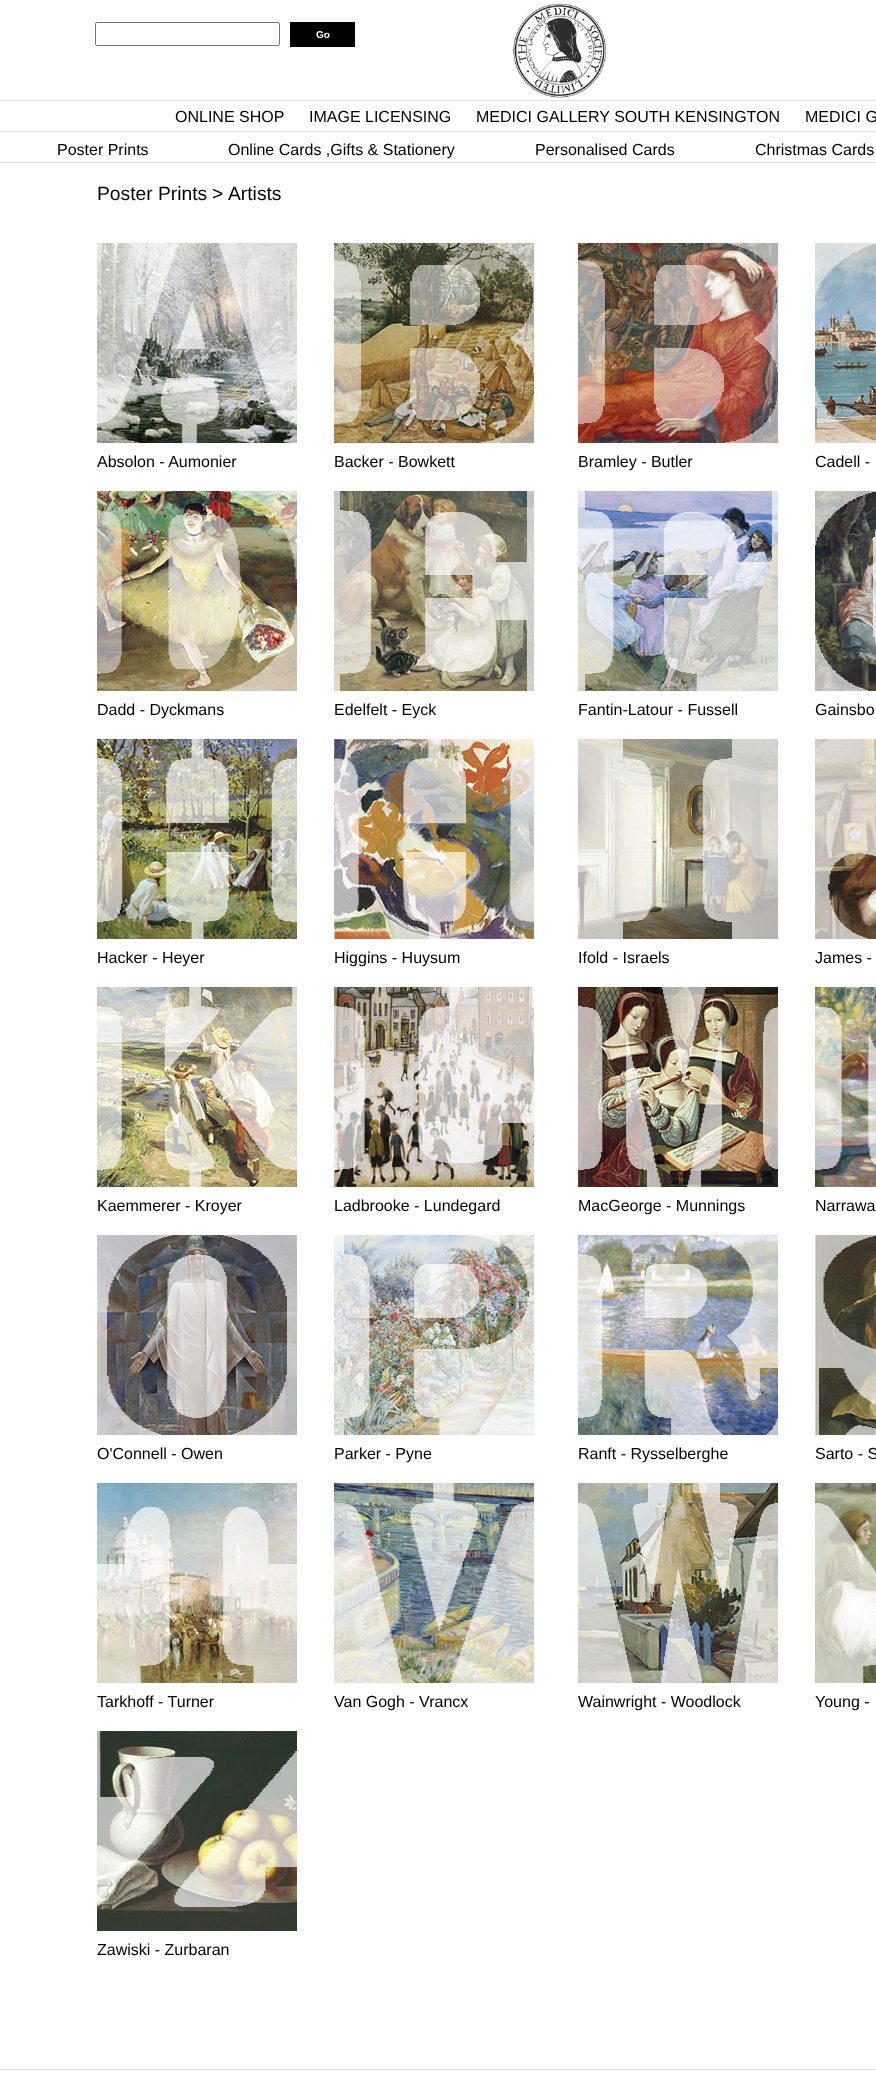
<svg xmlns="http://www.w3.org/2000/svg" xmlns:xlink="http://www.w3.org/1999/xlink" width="876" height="2076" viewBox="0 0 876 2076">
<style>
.cls-1{font:bold 10px Liberation Sans;fill:#ffffff}
.cls-2{font:16px Liberation Sans;fill:#000000}
.cls-3{font:19.25px Liberation Sans;fill:#000000}
</style>
<rect width="100%" height="100%" fill="#ffffff"/>
<rect fill="none" stroke="#767676" x="95.5" y="22.5" width="184" height="23" rx="1.5"/>
<rect fill="#000000" x="290" y="22" width="65" height="25"/>
<image xlink:href="image0.png" x="513" y="2" width="94" height="96"/>
<rect fill="#e0e0e0" x="0" y="100" width="876" height="1"/>
<rect fill="#e0e0e0" x="0" y="131" width="876" height="1"/>
<rect fill="#e0e0e0" x="0" y="162" width="876" height="1"/>
<image xlink:href="image1.png" x="97" y="243" width="200" height="200"/>
<image xlink:href="image2.png" x="334" y="243" width="200" height="200"/>
<image xlink:href="image3.png" x="578" y="243" width="200" height="200"/>
<image xlink:href="image4.png" x="815" y="243" width="61" height="200"/>
<image xlink:href="image5.png" x="97" y="491" width="200" height="200"/>
<image xlink:href="image6.png" x="334" y="491" width="200" height="200"/>
<image xlink:href="image7.png" x="578" y="491" width="200" height="200"/>
<image xlink:href="image8.png" x="815" y="491" width="61" height="200"/>
<image xlink:href="image9.png" x="97" y="739" width="200" height="200"/>
<image xlink:href="image10.png" x="334" y="739" width="200" height="200"/>
<image xlink:href="image11.png" x="578" y="739" width="200" height="200"/>
<image xlink:href="image12.png" x="815" y="739" width="61" height="200"/>
<image xlink:href="image13.png" x="97" y="987" width="200" height="200"/>
<image xlink:href="image14.png" x="334" y="987" width="200" height="200"/>
<image xlink:href="image15.png" x="578" y="987" width="200" height="200"/>
<image xlink:href="image16.png" x="815" y="987" width="61" height="200"/>
<image xlink:href="image17.png" x="97" y="1235" width="200" height="200"/>
<image xlink:href="image18.png" x="334" y="1235" width="200" height="200"/>
<image xlink:href="image19.png" x="578" y="1235" width="200" height="200"/>
<image xlink:href="image20.png" x="815" y="1235" width="61" height="200"/>
<image xlink:href="image21.png" x="97" y="1483" width="200" height="200"/>
<image xlink:href="image22.png" x="334" y="1483" width="200" height="200"/>
<image xlink:href="image23.png" x="578" y="1483" width="200" height="200"/>
<image xlink:href="image24.png" x="815" y="1483" width="61" height="200"/>
<image xlink:href="image25.png" x="97" y="1731" width="200" height="200"/>
<rect fill="#e0e0e0" x="0" y="2069" width="876" height="1"/>
<text class="cls-1" x="316" y="38">Go</text>
<text class="cls-2" x="175" y="122">ONLINE SHOP</text>
<text class="cls-2" x="309" y="122">IMAGE LICENSING</text>
<text class="cls-2" x="476" y="122">MEDICI GALLERY SOUTH KENSINGTON</text>
<text class="cls-2" x="805" y="122">MEDICI G</text>
<text class="cls-2" x="57" y="155">Poster Prints</text>
<text class="cls-2" x="228" y="155">Online Cards ,Gifts &amp; Stationery</text>
<text class="cls-2" x="535" y="155">Personalised Cards</text>
<text class="cls-2" x="755" y="155">Christmas Cards</text>
<text class="cls-3" x="97" y="200">Poster Prints</text>
<text class="cls-3" x="212" y="200">&gt;</text>
<text class="cls-3" x="228" y="200">Artists</text>
<text class="cls-2" x="97" y="467">Absolon - Aumonier</text>
<text class="cls-2" x="334" y="467">Backer - Bowkett</text>
<text class="cls-2" x="578" y="467">Bramley - Butler</text>
<text class="cls-2" x="815" y="467">Cadell -</text>
<text class="cls-2" x="97" y="715">Dadd - Dyckmans</text>
<text class="cls-2" x="334" y="715">Edelfelt - Eyck</text>
<text class="cls-2" x="578" y="715">Fantin-Latour - Fussell</text>
<text class="cls-2" x="815" y="715">Gainsbo</text>
<text class="cls-2" x="97" y="963">Hacker - Heyer</text>
<text class="cls-2" x="334" y="963">Higgins - Huysum</text>
<text class="cls-2" x="578" y="963">Ifold - Israels</text>
<text class="cls-2" x="815" y="963">James -</text>
<text class="cls-2" x="97" y="1211">Kaemmerer - Kroyer</text>
<text class="cls-2" x="334" y="1211">Ladbrooke - Lundegard</text>
<text class="cls-2" x="578" y="1211">MacGeorge - Munnings</text>
<text class="cls-2" x="815" y="1211">Narrawa</text>
<text class="cls-2" x="97" y="1459">O'Connell - Owen</text>
<text class="cls-2" x="334" y="1459">Parker - Pyne</text>
<text class="cls-2" x="578" y="1459">Ranft - Rysselberghe</text>
<text class="cls-2" x="815" y="1459">Sarto - S</text>
<text class="cls-2" x="97" y="1707">Tarkhoff - Turner</text>
<text class="cls-2" x="334" y="1707">Van Gogh - Vrancx</text>
<text class="cls-2" x="578" y="1707">Wainwright - Woodlock</text>
<text class="cls-2" x="815" y="1707">Young -</text>
<text class="cls-2" x="97" y="1955">Zawiski - Zurbaran</text>
</svg>
